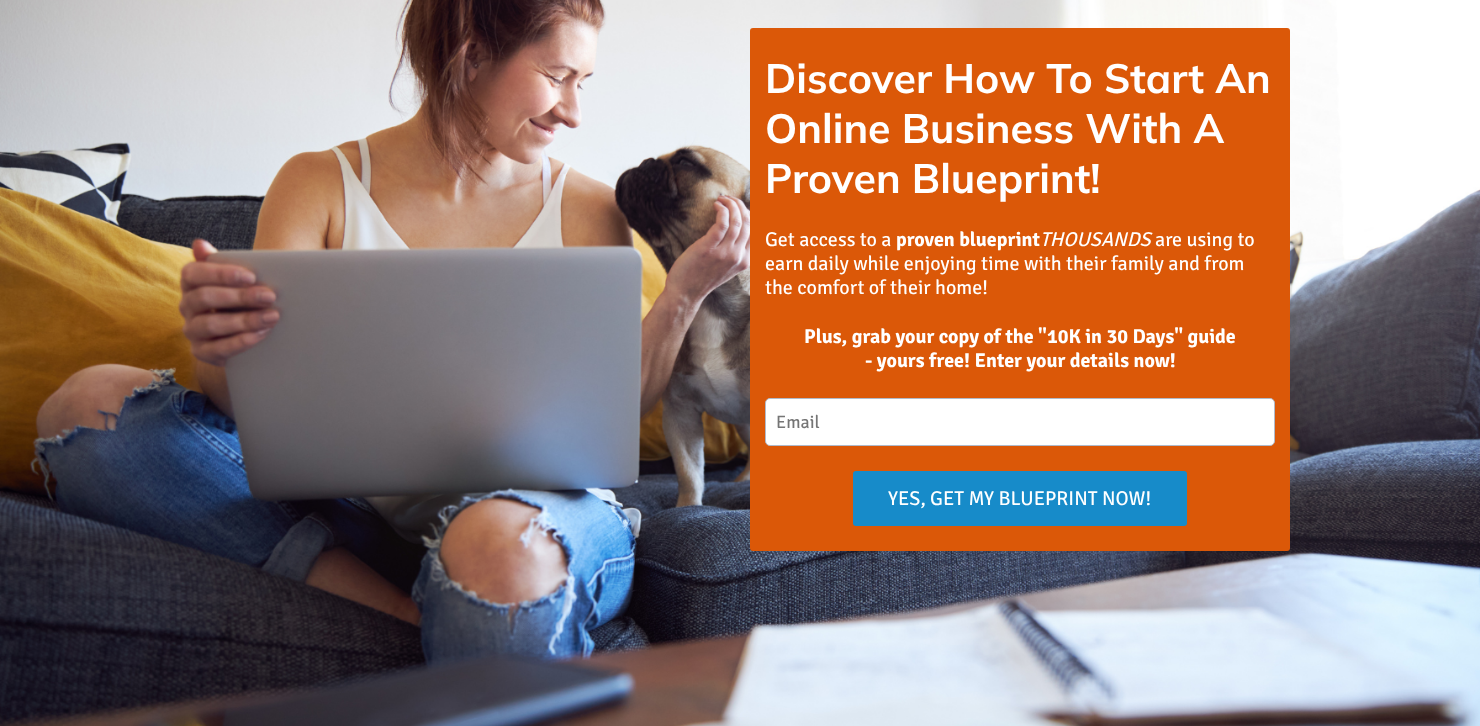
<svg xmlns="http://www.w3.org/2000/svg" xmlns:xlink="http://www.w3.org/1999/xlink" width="1480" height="726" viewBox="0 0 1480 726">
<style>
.cls-1{font:bold 41px Mulish;fill:#ffffff}
.cls-2{font:20px Signika Negative;fill:#ffffff}
.cls-3{font:bold 20px Signika Negative;fill:#ffffff}
.cls-4{font:italic 20px Signika Negative;fill:#ffffff}
.cls-5{font:18px Signika Negative;fill:#757575}
</style>
<rect width="100%" height="100%" fill="#ffffff"/>
<image xlink:href="image0.png" x="0" y="0" width="1480" height="726"/>
<rect fill="#db5808" x="750" y="28" width="540" height="523" rx="3"/>
<rect fill="#ffffff" stroke="#b0baca" x="765.5" y="398.5" width="509" height="47" rx="4.5"/>
<rect fill="#178bc9" x="853" y="471" width="334" height="55" rx="3"/>
<text class="cls-1"><tspan x="765" y="93">Discover How To Start An</tspan><tspan x="765" y="143">Online Business With A</tspan><tspan x="765" y="193">Proven Blueprint!</tspan></text>
<text class="cls-2" x="765" y="246">Get access to a</text>
<text class="cls-3" x="896" y="246">proven blueprint</text>
<text class="cls-4" x="1040" y="246">THOUSANDS</text>
<text class="cls-2" x="1155" y="246">are using to</text>
<text class="cls-2"><tspan x="765" y="270">earn daily while enjoying time with their family and from</tspan><tspan x="765" y="294">the comfort of their home!</tspan></text>
<text class="cls-3" x="804" y="343">Plus, grab your copy of the "10K in 30 Days" guide</text>
<text class="cls-3" x="865" y="367">- yours free! Enter your details now!</text>
<text class="cls-5" x="776" y="428">Email</text>
<text class="cls-2" x="888" y="505">YES, GET MY BLUEPRINT NOW!</text>
</svg>
